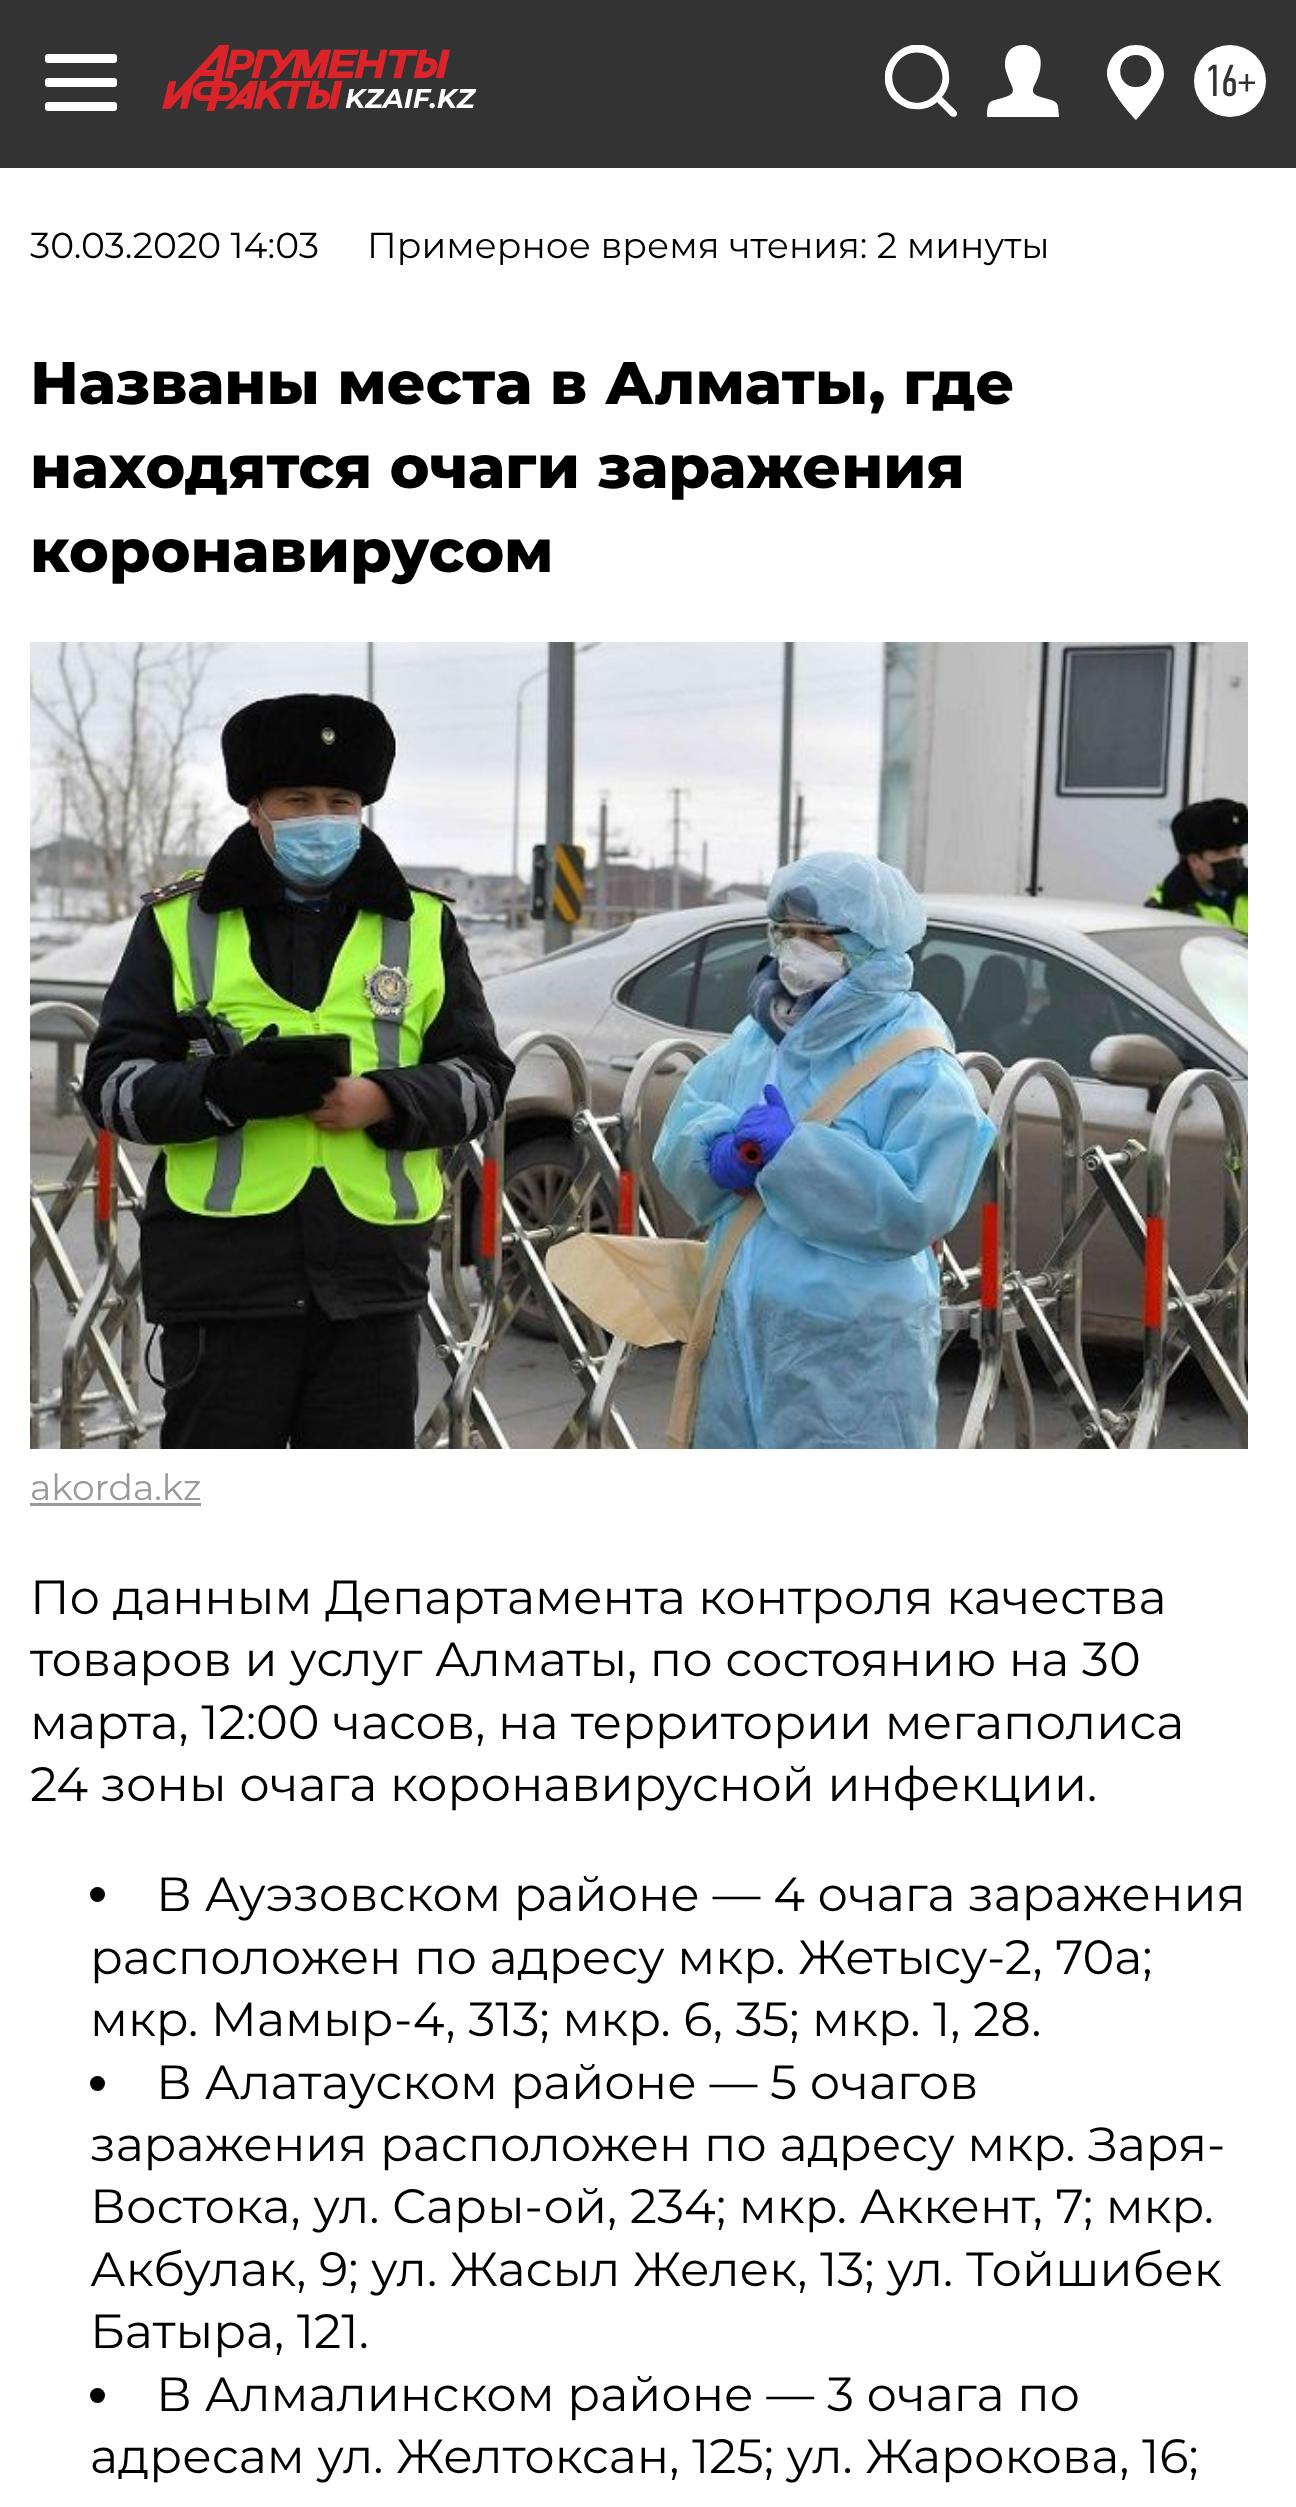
<svg xmlns="http://www.w3.org/2000/svg" xmlns:xlink="http://www.w3.org/1999/xlink" width="1296" height="2507" viewBox="0 0 1296 2507">
<style>
.cls-1{font:45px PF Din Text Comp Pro;fill:#333333}
.cls-2{font:italic bold 27px Montserrat;fill:#ffffff}
.cls-3{font:36px Montserrat;fill:#000000}
.cls-4{font:800 60px Montserrat;fill:#000000}
.cls-5{font:36px Montserrat;fill:#999999}
.cls-6{font:48px Montserrat;fill:#000000}
</style>
<defs>
<clipPath id="clip1"><rect x="885" y="45" width="72" height="72"/></clipPath>
</defs>
<rect width="100%" height="100%" fill="#ffffff"/>
<rect fill="#333333" x="0" y="0" width="1296" height="168"/>
<rect fill="#ffffff" x="45" y="54" width="72" height="9" rx="3"/>
<rect fill="#ffffff" x="45" y="78" width="72" height="9" rx="3"/>
<rect fill="#ffffff" x="45" y="102" width="72" height="9" rx="3"/>
<g clip-path="url(#clip1)">
<path fill="#ffffff" d="M942 97C947 91 950 83 949 76C949 65 944 56 935 50C905 30 869 69 892 98C898 104 906 109 914 109C922 110 931 108 937 102L946 111C948 113 952 119 956 116C960 113 953 108 951 106ZM900 95C882 78 898 48 922 53C927 54 932 56 935 60C958 85 922 118 900 95Z"/>
</g>
<image xlink:href="image0.png" x="987" y="45" width="72" height="72"/>
<path fill="#ffffff" d="M1136 45C1120 45 1107 58 1107 74C1107 90 1136 120 1136 120C1136 120 1164 90 1164 74C1164 58 1151 45 1136 45ZM1136 87C1115 87 1115 55 1136 55C1156 55 1157 87 1136 87Z"/>
<circle fill="#ffffff" cx="1230" cy="81" r="36"/>
<image xlink:href="image1.png" x="162" y="45" width="288" height="66"/>
<image xlink:href="image2.png" x="30" y="642" width="1218" height="807"/>
<rect fill="#999999" x="30" y="1503" width="171" height="3"/>
<circle fill="#000000" cx="97.5" cy="1894.5" r="7.5"/>
<circle fill="#000000" cx="97.5" cy="2083.5" r="7.5"/>
<circle fill="#000000" cx="97.5" cy="2395.5" r="7.5"/>
<text class="cls-1" x="1204" y="96">16+</text>
<text class="cls-2" x="345" y="108">KZAIF.KZ</text>
<text class="cls-3" x="30" y="258">30.03.2020 14:03</text>
<text class="cls-3" x="367" y="258">Примерное время чтения: 2 минуты</text>
<text class="cls-4"><tspan x="30" y="404">Названы места в Алматы, где</tspan><tspan x="30" y="488">находятся очаги заражения</tspan><tspan x="30" y="572">коронавирусом</tspan></text>
<text class="cls-5" x="30" y="1500">akorda.kz</text>
<text class="cls-6"><tspan x="30" y="1614">По данным Департамента контроля качества</tspan><tspan x="30" y="1676">товаров и услуг Алматы, по состоянию на 30</tspan><tspan x="30" y="1739">марта, 12:00 часов, на территории мегаполиса</tspan><tspan x="30" y="1801">24 зоны очага коронавирусной инфекции.</tspan></text>
<text class="cls-6" x="156" y="1911">В Ауэзовском районе — 4 очага заражения</text>
<text class="cls-6"><tspan x="90" y="1974">расположен по адресу мкр. Жетысу-2, 70а;</tspan><tspan x="90" y="2036">мкр. Мамыр-4, 313; мкр. 6, 35; мкр. 1, 28.</tspan></text>
<text class="cls-6" x="156" y="2099">В Алатауском районе — 5 очагов</text>
<text class="cls-6"><tspan x="90" y="2161">заражения расположен по адресу мкр. Заря-</tspan><tspan x="90" y="2223">Востока, ул. Сары-ой, 234; мкр. Аккент, 7; мкр.</tspan><tspan x="90" y="2286">Акбулак, 9; ул. Жасыл Желек, 13; ул. Тойшибек</tspan><tspan x="90" y="2348">Батыра, 121.</tspan></text>
<text class="cls-6" x="156" y="2411">В Алмалинском районе — 3 очага по</text>
<text class="cls-6" x="90" y="2473">адресам ул. Желтоксан, 125; ул. Жарокова, 16;</text>
</svg>
